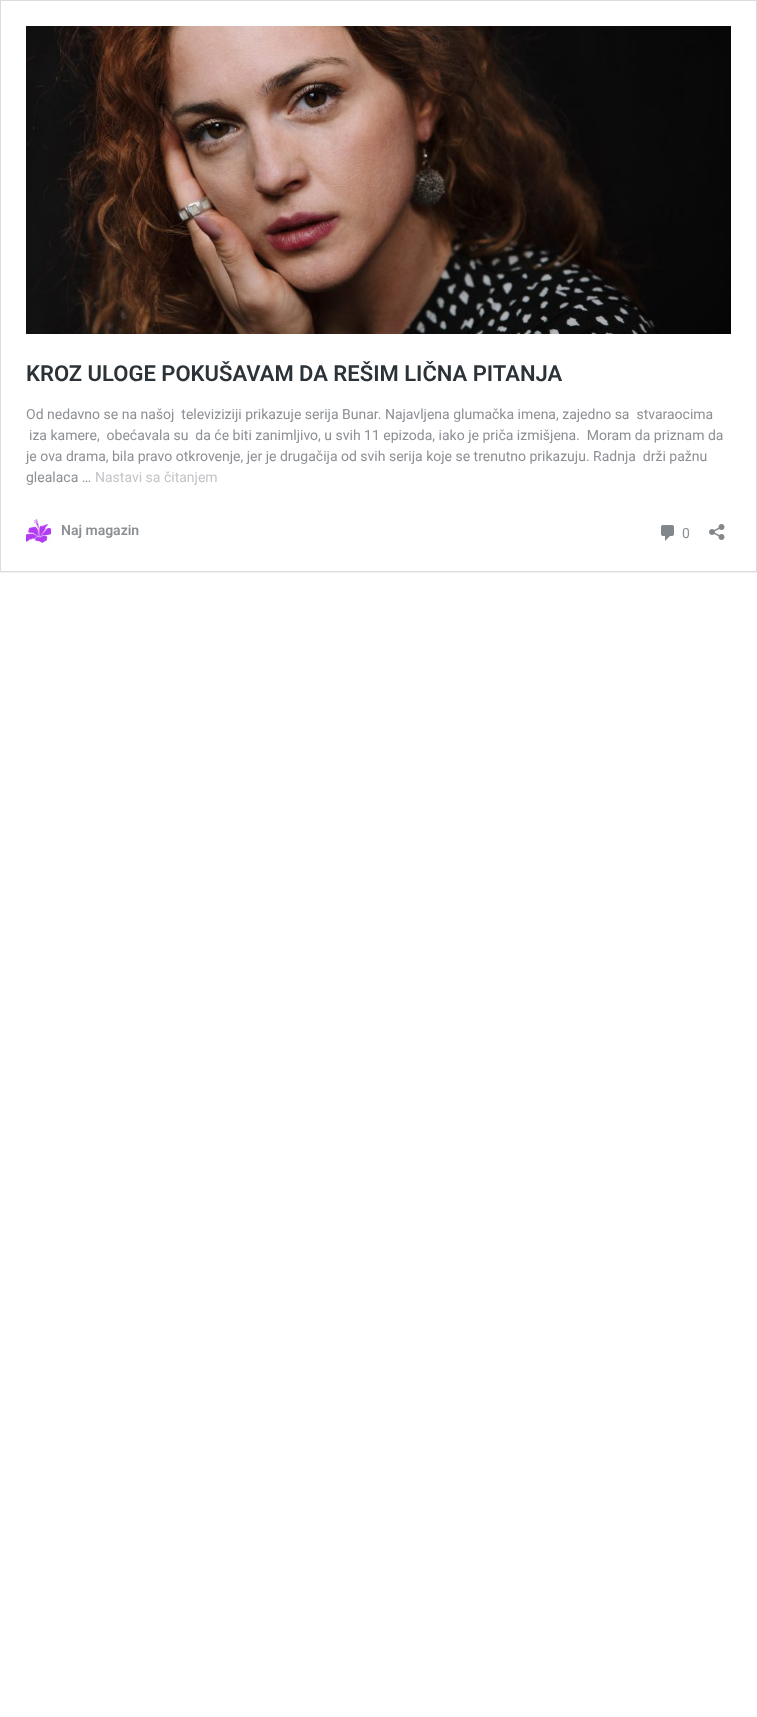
<svg xmlns="http://www.w3.org/2000/svg" xmlns:xlink="http://www.w3.org/1999/xlink" width="757" height="1717" viewBox="0 0 757 1717">
<style>
.cls-1{font:600 22px Roboto;fill:#2c3338}
.cls-2{font:14px Roboto;fill:#8c8f94}
.cls-3{font:14px Roboto;fill:#c3c4c7}
.cls-4{font:600 14px Roboto;fill:#8c8f94}
</style>
<defs>
<clipPath id="clip1"><rect x="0" y="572" width="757" height="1"/></clipPath>
</defs>
<rect width="100%" height="100%" fill="#ffffff"/>
<g clip-path="url(#clip1)">
<rect fill="#000000" fill-opacity="0.05" filter="blur(0.5px)" x="0" y="1" width="757" height="572"/>
</g>
<rect fill="none" stroke="#dcdcde" x="0.5" y="0.5" width="756" height="571"/>
<image xlink:href="image0.png" x="26" y="26" width="705" height="308"/>
<image xlink:href="image1.png" x="26" y="519" width="25" height="24"/>
<image xlink:href="image2.png" x="661" y="525" width="13" height="16"/>
<image xlink:href="image3.png" x="709" y="524" width="16" height="16"/>
<text class="cls-1" x="26" y="381">KROZ ULOGE POKUŠAVAM DA REŠIM LIČNA PITANJA</text>
<text class="cls-2" xml:space="preserve" x="26" y="419">Od nedavno se na našoj  televiziziji prikazuje serija Bunar. Najavljena glumačka imena, zajedno sa  stvaraocima</text>
<text class="cls-2" xml:space="preserve" x="29" y="440">iza kamere,  obećavala su  da će biti zanimljivo, u svih 11 epizoda, iako je priča izmišjena.  Moram da priznam da</text>
<text class="cls-2" xml:space="preserve"><tspan x="26" y="461">je ova drama, bila pravo otkrovenje, jer je drugačija od svih serija koje se trenutno prikazuju. Radnja  drži pažnu</tspan><tspan x="26" y="482">glealaca …</tspan></text>
<text class="cls-3" x="95" y="482">Nastavi sa čitanjem</text>
<text class="cls-4" x="61" y="535">Naj magazin</text>
<text class="cls-2" x="682" y="538">0</text>
</svg>
